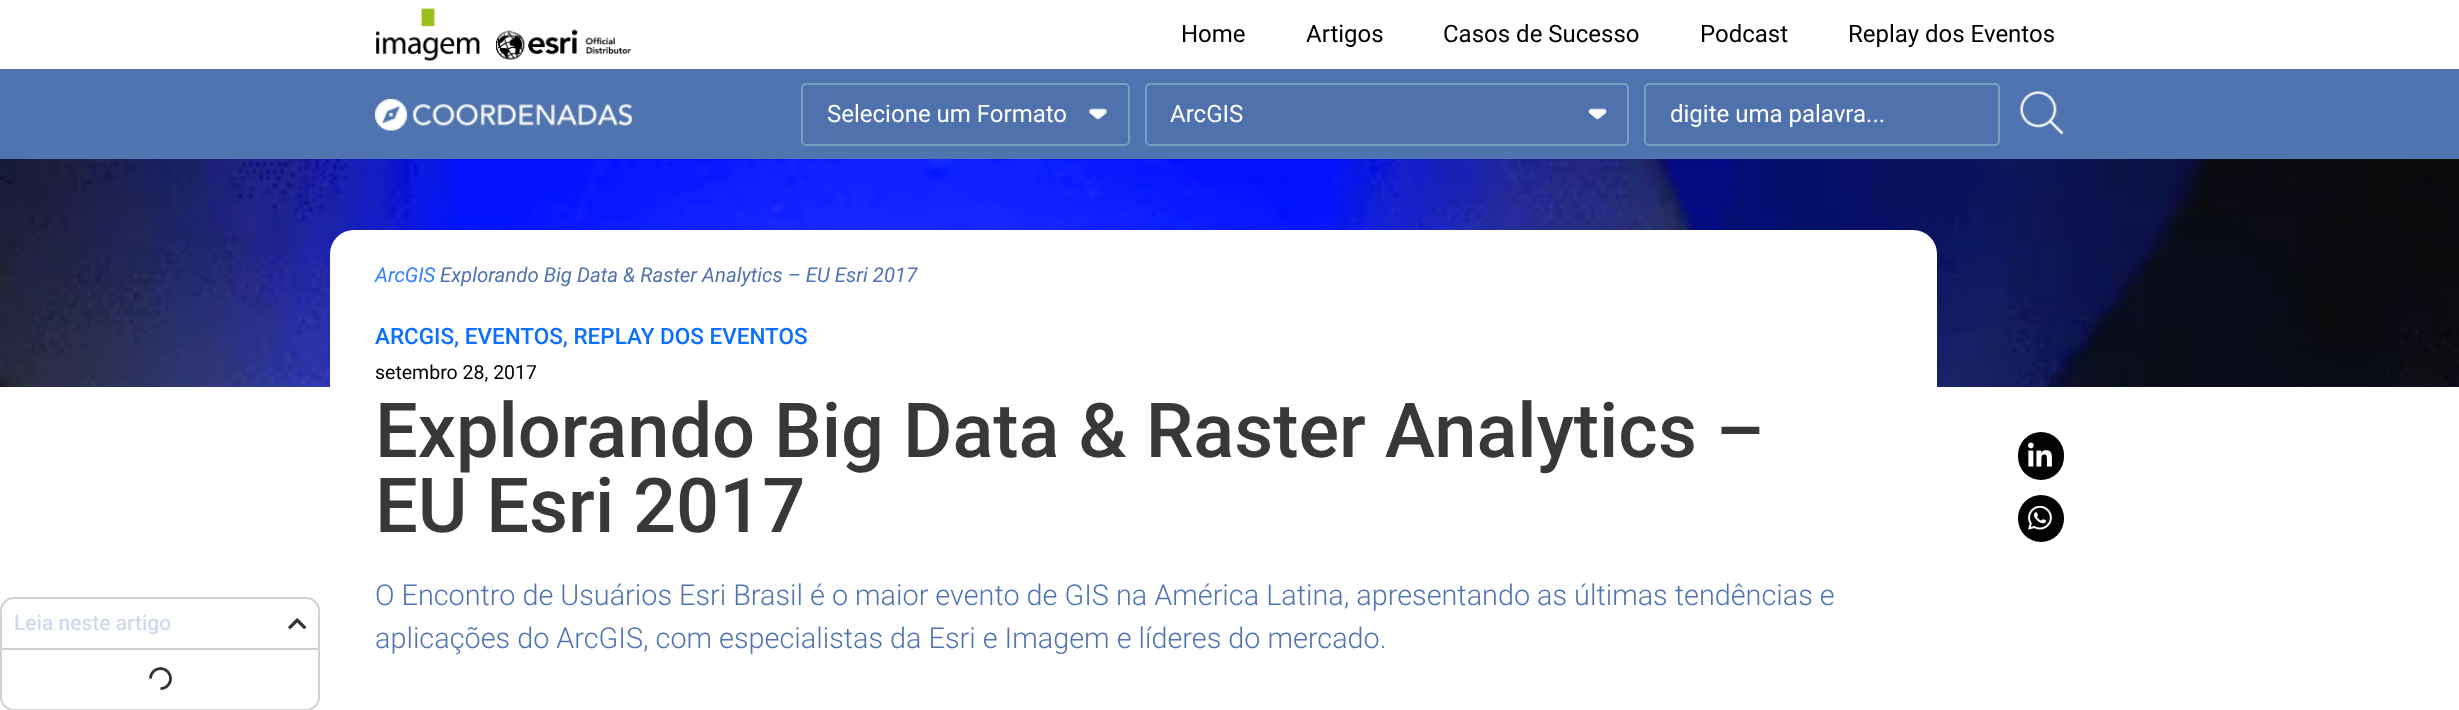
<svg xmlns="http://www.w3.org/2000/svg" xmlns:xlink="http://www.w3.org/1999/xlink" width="2459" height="710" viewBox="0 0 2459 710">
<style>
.cls-1{font:24px Roboto;fill:#000000}
.cls-2{font:24px Roboto;fill:#ffffff}
.cls-3{font:500 21px Roboto;fill:#d1d9ec}
.cls-4{font:italic 20.4px Roboto;fill:#3280ff}
.cls-5{font:italic 20.4px Roboto;fill:#5074af}
.cls-6{font:500 22.5px Roboto;fill:#0c70ff}
.cls-7{font:19.5px Roboto;fill:#000000}
.cls-8{font:500 75.8px Roboto;fill:#383838}
.cls-9{font:300 28.8px Roboto;fill:#5074af}
</style>
<rect width="100%" height="100%" fill="#ffffff"/>
<image xlink:href="image0.png" x="375" y="8" width="257" height="53"/>
<rect fill="#5074af" x="0" y="69" width="2459" height="90"/>
<image xlink:href="image1.png" x="375" y="99" width="258" height="32"/>
<rect fill="#4f72ac" x="801" y="83" width="329" height="63" rx="5"/>
<image xlink:href="image2.png" x="1088" y="108" width="20" height="12"/>
<rect fill="none" stroke="#769fc0" stroke-width="2" x="802" y="84" width="327" height="61" rx="4"/>
<rect fill="#4f72ac" x="1145" y="83" width="484" height="63" rx="5"/>
<image xlink:href="image3.png" x="1588" y="108" width="19" height="12"/>
<rect fill="none" stroke="#769fc0" stroke-width="2" x="1146" y="84" width="482" height="61" rx="4"/>
<rect fill="#4f72ac" stroke="#769fc0" stroke-width="2" x="1645" y="84" width="354" height="61" rx="4"/>
<image xlink:href="image4.png" x="2020" y="91" width="44" height="44"/>
<image xlink:href="image5.png" x="0" y="159" width="2459" height="228"/>
<rect fill="#020202" x="2018" y="432" width="46" height="48" rx="23"/>
<image xlink:href="image6.png" x="2028" y="442" width="24" height="25"/>
<rect fill="#020202" x="2018" y="495" width="46" height="47" rx="23"/>
<image xlink:href="image7.png" x="2028" y="505" width="24" height="25"/>
<rect fill="none" stroke="#d2d1d1" stroke-width="2" x="1" y="598" width="318" height="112" rx="13"/>
<rect fill="#d2d1d1" x="2" y="648" width="316" height="2"/>
<image xlink:href="image8.png" x="288" y="618" width="19" height="11"/>
<image xlink:href="image9.png" x="149" y="667" width="23" height="23"/>
<rect fill="#ffffff" x="330" y="230" width="1607" height="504" rx="24"/>
<text class="cls-1" x="1181" y="42">Home</text>
<text class="cls-1" x="1306" y="42">Artigos</text>
<text class="cls-1" x="1443" y="42">Casos de Sucesso</text>
<text class="cls-1" x="1700" y="42">Podcast</text>
<text class="cls-1" x="1848" y="42">Replay dos Eventos</text>
<text class="cls-2" x="827" y="122">Selecione um Formato</text>
<text class="cls-2" x="1170" y="122">ArcGIS</text>
<text class="cls-2" x="1670" y="122">digite uma palavra...</text>
<text class="cls-3" x="14" y="630">Leia neste artigo</text>
<text class="cls-4" x="375" y="282">ArcGIS</text>
<text class="cls-5" x="440" y="282">Explorando Big Data &amp; Raster Analytics – EU Esri 2017</text>
<text class="cls-6" x="375" y="344">ARCGIS, EVENTOS, REPLAY DOS EVENTOS</text>
<text class="cls-7" x="375" y="379">setembro 28, 2017</text>
<text class="cls-8"><tspan x="375" y="457">Explorando Big Data &amp; Raster Analytics –</tspan><tspan x="375" y="532">EU Esri 2017</tspan></text>
<text class="cls-9"><tspan x="375" y="605">O Encontro de Usuários Esri Brasil é o maior evento de GIS na América Latina, apresentando as últimas tendências e</tspan><tspan x="375" y="648">aplicações do ArcGIS, com especialistas da Esri e Imagem e líderes do mercado.</tspan></text>
</svg>
